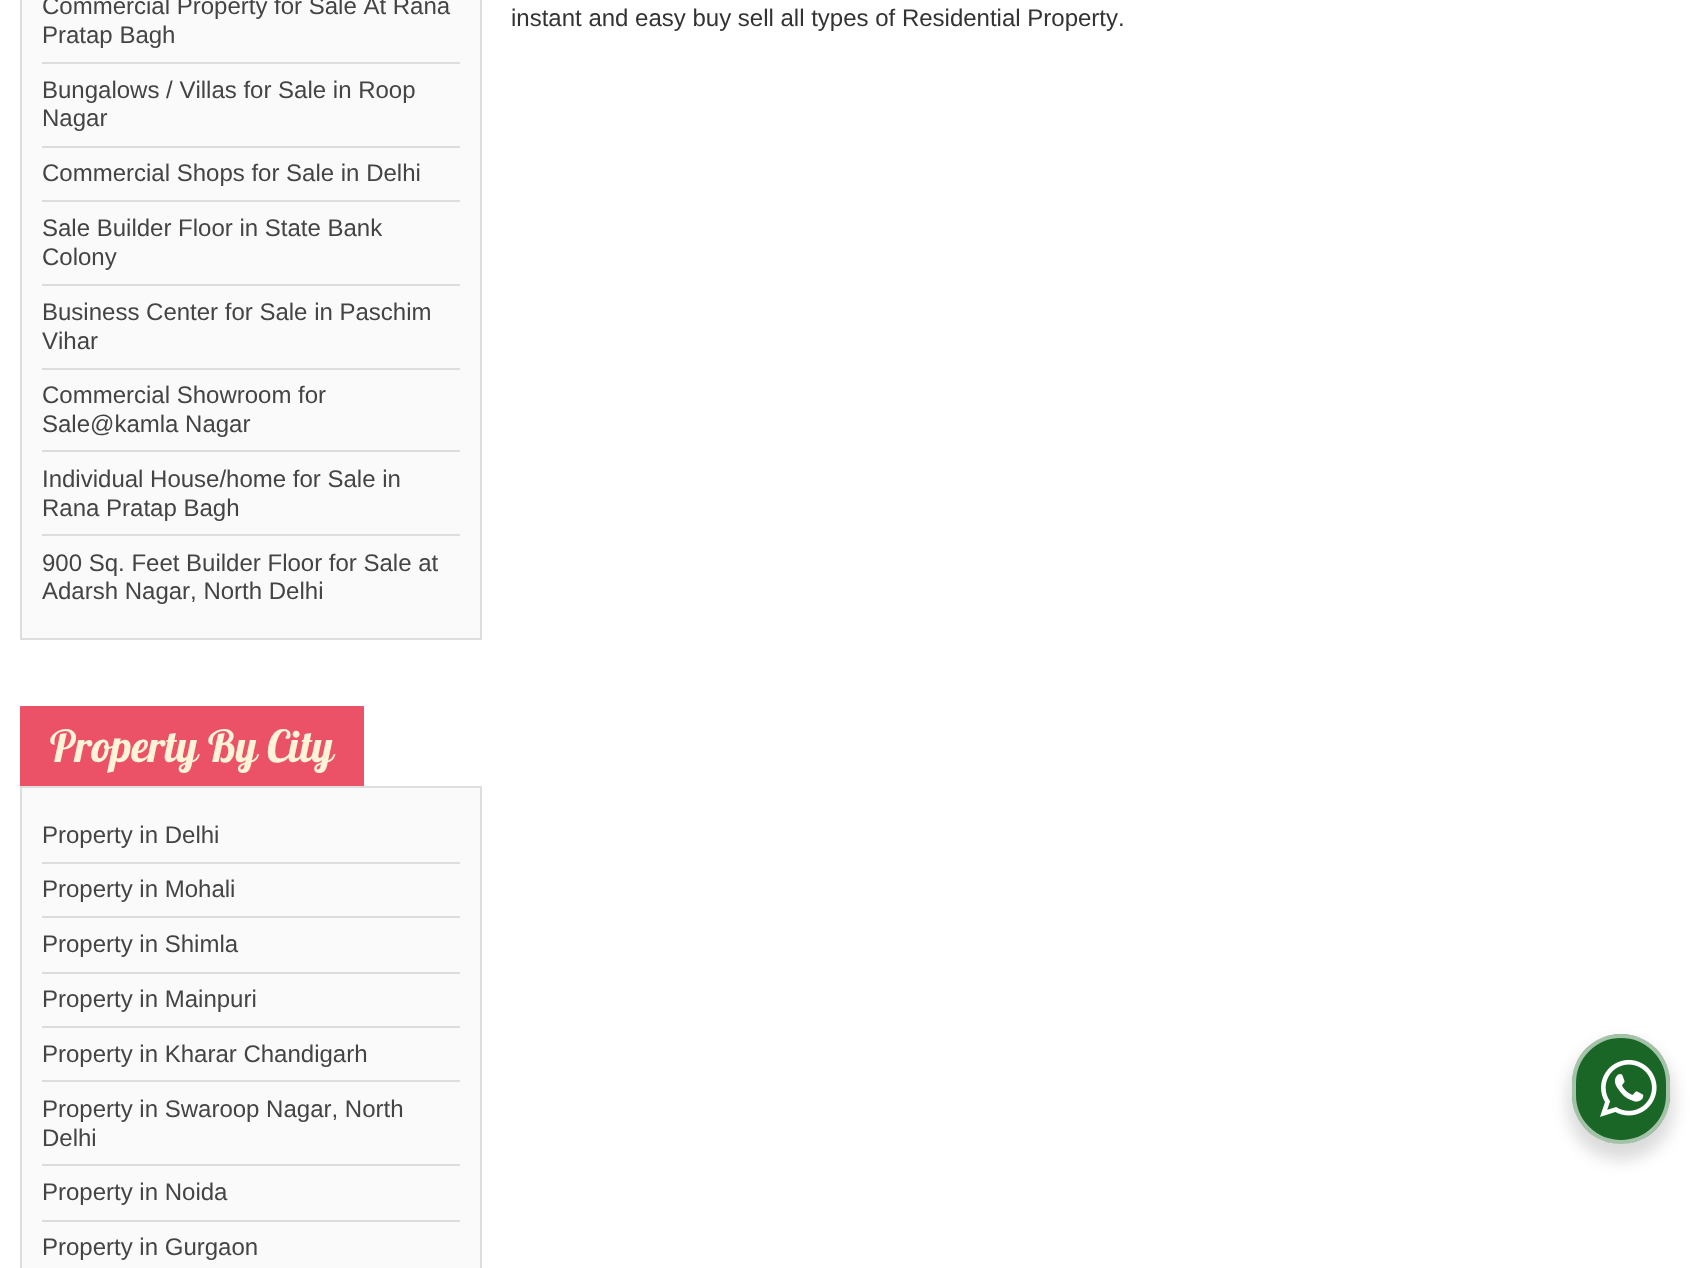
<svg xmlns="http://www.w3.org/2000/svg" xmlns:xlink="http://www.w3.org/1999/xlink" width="1700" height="1268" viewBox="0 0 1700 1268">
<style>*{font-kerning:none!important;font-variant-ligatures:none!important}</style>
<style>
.cls-1{font:24px Liberation Sans;fill:#444444}
.cls-2{font:44px Lobster;fill:#fff4d8}
.cls-3{font:24px Liberation Sans;fill:#333333}
</style>
<rect width="100%" height="100%" fill="#ffffff"/>
<rect fill="#fafafa" stroke="#dddddd" stroke-width="2" x="21" y="-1" width="460" height="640"/>
<rect fill="#dddddd" x="42" y="62" width="418" height="2"/>
<rect fill="#dddddd" x="42" y="146" width="418" height="2"/>
<rect fill="#dddddd" x="42" y="200" width="418" height="2"/>
<rect fill="#dddddd" x="42" y="284" width="418" height="2"/>
<rect fill="#dddddd" x="42" y="368" width="418" height="2"/>
<rect fill="#dddddd" x="42" y="450" width="418" height="2"/>
<rect fill="#dddddd" x="42" y="534" width="418" height="2"/>
<rect fill="#eb5267" x="20" y="706" width="344" height="80"/>
<rect fill="#fafafa" stroke="#dddddd" stroke-width="2" x="21" y="787" width="460" height="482"/>
<rect fill="#dddddd" x="42" y="862" width="418" height="2"/>
<rect fill="#dddddd" x="42" y="916" width="418" height="2"/>
<rect fill="#dddddd" x="42" y="972" width="418" height="2"/>
<rect fill="#dddddd" x="42" y="1026" width="418" height="2"/>
<rect fill="#dddddd" x="42" y="1080" width="418" height="2"/>
<rect fill="#dddddd" x="42" y="1164" width="418" height="2"/>
<rect fill="#dddddd" x="42" y="1220" width="418" height="2"/>
<rect fill="#000000" fill-opacity="0.14" filter="blur(8px)" x="1568" y="1042" width="106" height="118" rx="53"/>
<rect fill="#196626" x="1572" y="1034" width="98" height="110" rx="49"/>
<rect fill="none" stroke="#ffffff" stroke-opacity="0.6" stroke-width="4" x="1574" y="1036" width="94" height="106" rx="47"/>
<image xlink:href="image0.png" x="1600" y="1059" width="57" height="58"/>
<text class="cls-1"><tspan x="42" y="14">Commercial Property for Sale At Rana</tspan><tspan x="42" y="43">Pratap Bagh</tspan></text>
<text class="cls-1"><tspan x="42" y="98">Bungalows / Villas for Sale in Roop</tspan><tspan x="42" y="126">Nagar</tspan></text>
<text class="cls-1" x="42" y="181">Commercial Shops for Sale in Delhi</text>
<text class="cls-1"><tspan x="42" y="236">Sale Builder Floor in State Bank</tspan><tspan x="42" y="265">Colony</tspan></text>
<text class="cls-1"><tspan x="42" y="320">Business Center for Sale in Paschim</tspan><tspan x="42" y="349">Vihar</tspan></text>
<text class="cls-1"><tspan x="42" y="403">Commercial Showroom for</tspan><tspan x="42" y="432">Sale@kamla Nagar</tspan></text>
<text class="cls-1"><tspan x="42" y="487">Individual House/home for Sale in</tspan><tspan x="42" y="516">Rana Pratap Bagh</tspan></text>
<text class="cls-1"><tspan x="42" y="571">900 Sq. Feet Builder Floor for Sale at</tspan><tspan x="42" y="599">Adarsh Nagar, North Delhi</tspan></text>
<text class="cls-2" x="50" y="762">Property By City</text>
<text class="cls-1" x="42" y="843">Property in Delhi</text>
<text class="cls-1" x="42" y="897">Property in Mohali</text>
<text class="cls-1" x="42" y="952">Property in Shimla</text>
<text class="cls-1" x="42" y="1007">Property in Mainpuri</text>
<text class="cls-1" x="42" y="1062">Property in Kharar Chandigarh</text>
<text class="cls-1"><tspan x="42" y="1117">Property in Swaroop Nagar, North</tspan><tspan x="42" y="1146">Delhi</tspan></text>
<text class="cls-1" x="42" y="1200">Property in Noida</text>
<text class="cls-1" x="42" y="1255">Property in Gurgaon</text>
<text class="cls-3" x="511" y="26">instant and easy buy sell all types of Residential Property.</text>
</svg>
